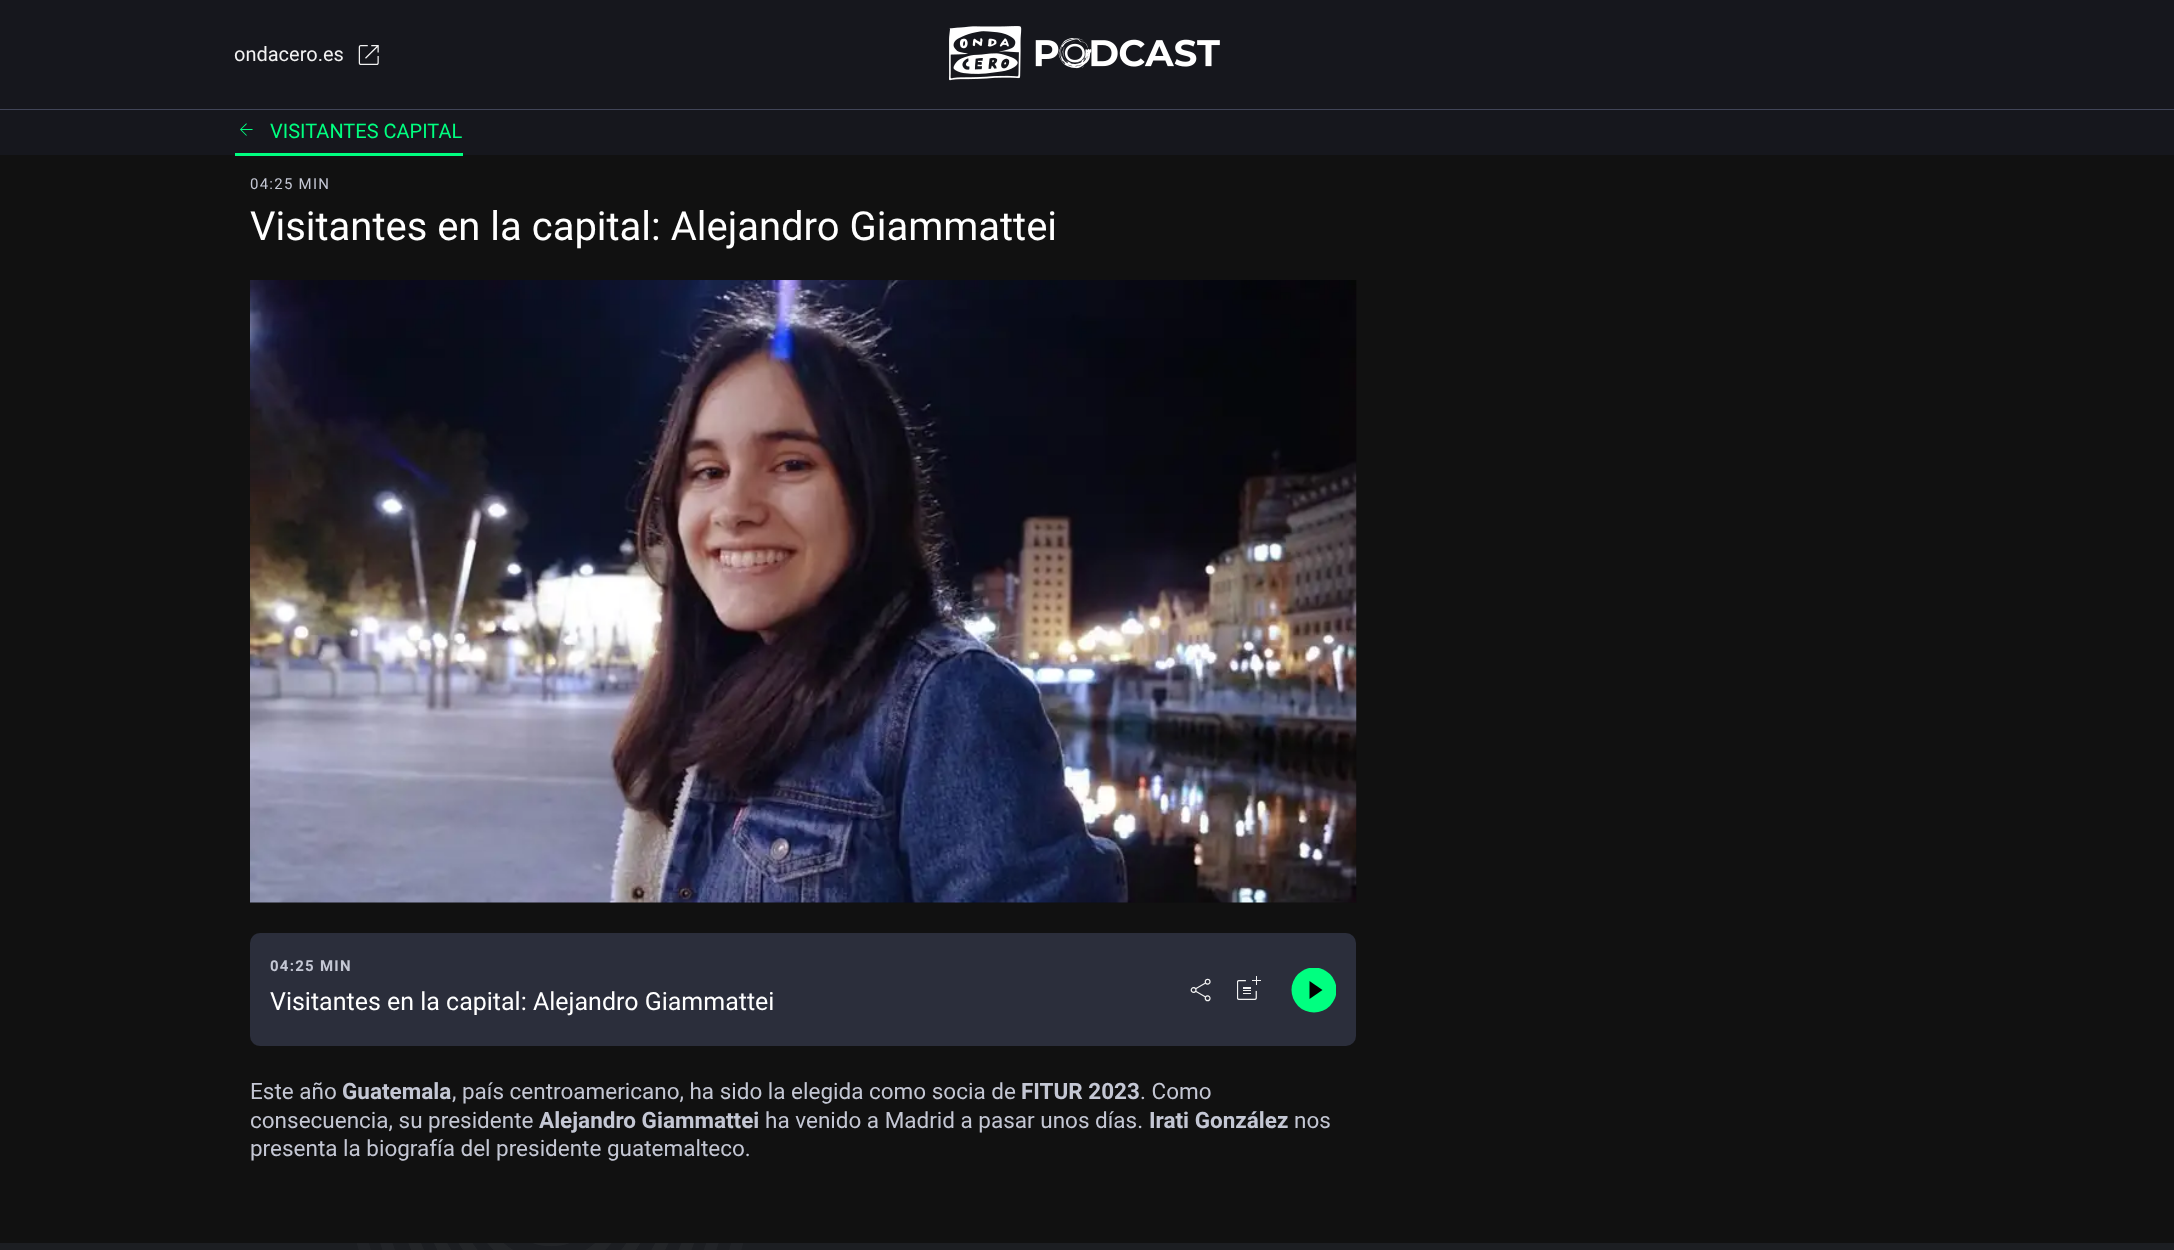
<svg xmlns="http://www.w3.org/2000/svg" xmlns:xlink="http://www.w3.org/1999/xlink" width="2174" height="1250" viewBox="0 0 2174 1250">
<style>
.cls-1{font:20px Roboto;fill:#f2f2f2}
.cls-2{font:20px Roboto;fill:#00ff80}
.cls-3{font:15px Roboto;letter-spacing:1.25px;fill:#c4c7d4}
.cls-4{font:40px Roboto;fill:#ffffff}
.cls-5{font:bold 15px Roboto;letter-spacing:1.25px;fill:#c4c7d4}
.cls-6{font:25px Roboto;fill:#ffffff}
.cls-7{font:22.5px Roboto;fill:#c4c7d4}
.cls-8{font:bold 22.5px Roboto;fill:#c4c7d4}
</style>
<defs>
<clipPath id="clip1"><rect x="1291" y="968" width="45" height="45"/></clipPath>
</defs>
<rect width="100%" height="100%" fill="#1c1e22"/>
<rect fill="#16171d" x="0" y="0" width="2174" height="109"/>
<rect fill="#414558" x="0" y="109" width="2174" height="1"/>
<image xlink:href="image0.png" x="358" y="45" width="21" height="20"/>
<image xlink:href="image1.png" x="949" y="26" width="271" height="55"/>
<rect fill="#111111" x="0" y="155" width="2174" height="1088"/>
<rect fill="#16171d" x="0" y="110" width="2174" height="45"/>
<rect fill="#00ff80" x="235" y="153" width="228" height="3"/>
<image xlink:href="image2.png" x="240" y="123" width="13" height="13"/>
<image xlink:href="image3.png" x="250" y="280" width="1107" height="623"/>
<rect fill="#2b2e3b" x="250" y="933" width="1106" height="113" rx="10"/>
<image xlink:href="image4.png" x="1190" y="978" width="21" height="24"/>
<image xlink:href="image5.png" x="1237" y="976" width="24" height="24"/>
<g clip-path="url(#clip1)">
<circle fill="#00ff80" cx="1314" cy="990" r="22.5"/>
</g>
<path fill="#000000" d="M1309.5 981V999L1322.5 990Z"/>
<image xlink:href="image6.png" x="357" y="1243" width="386" height="7"/>
<text class="cls-1" x="234" y="61">ondacero.es</text>
<text class="cls-2" x="270" y="138">VISITANTES CAPITAL</text>
<text class="cls-3" x="250" y="189">04:25 MIN</text>
<text class="cls-4" x="250" y="240">Visitantes en la capital: Alejandro Giammattei</text>
<text class="cls-5" x="270" y="971">04:25 MIN</text>
<text class="cls-6" x="270" y="1010">Visitantes en la capital: Alejandro Giammattei</text>
<text class="cls-7" x="250" y="1099">Este año</text>
<text class="cls-8" x="342" y="1099">Guatemala</text>
<text class="cls-7" x="452" y="1099">, país centroamericano, ha sido la elegida como socia de</text>
<text class="cls-8" x="1021" y="1099">FITUR 2023</text>
<text class="cls-7" x="1140" y="1099">. Como</text>
<text class="cls-7" x="250" y="1128">consecuencia, su presidente</text>
<text class="cls-8" x="539" y="1128">Alejandro Giammattei</text>
<text class="cls-7" x="765" y="1128">ha venido a Madrid a pasar unos días.</text>
<text class="cls-8" x="1149" y="1128">Irati González</text>
<text class="cls-7" x="1294" y="1128">nos</text>
<text class="cls-7" x="250" y="1156">presenta la biografía del presidente guatemalteco.</text>
</svg>
